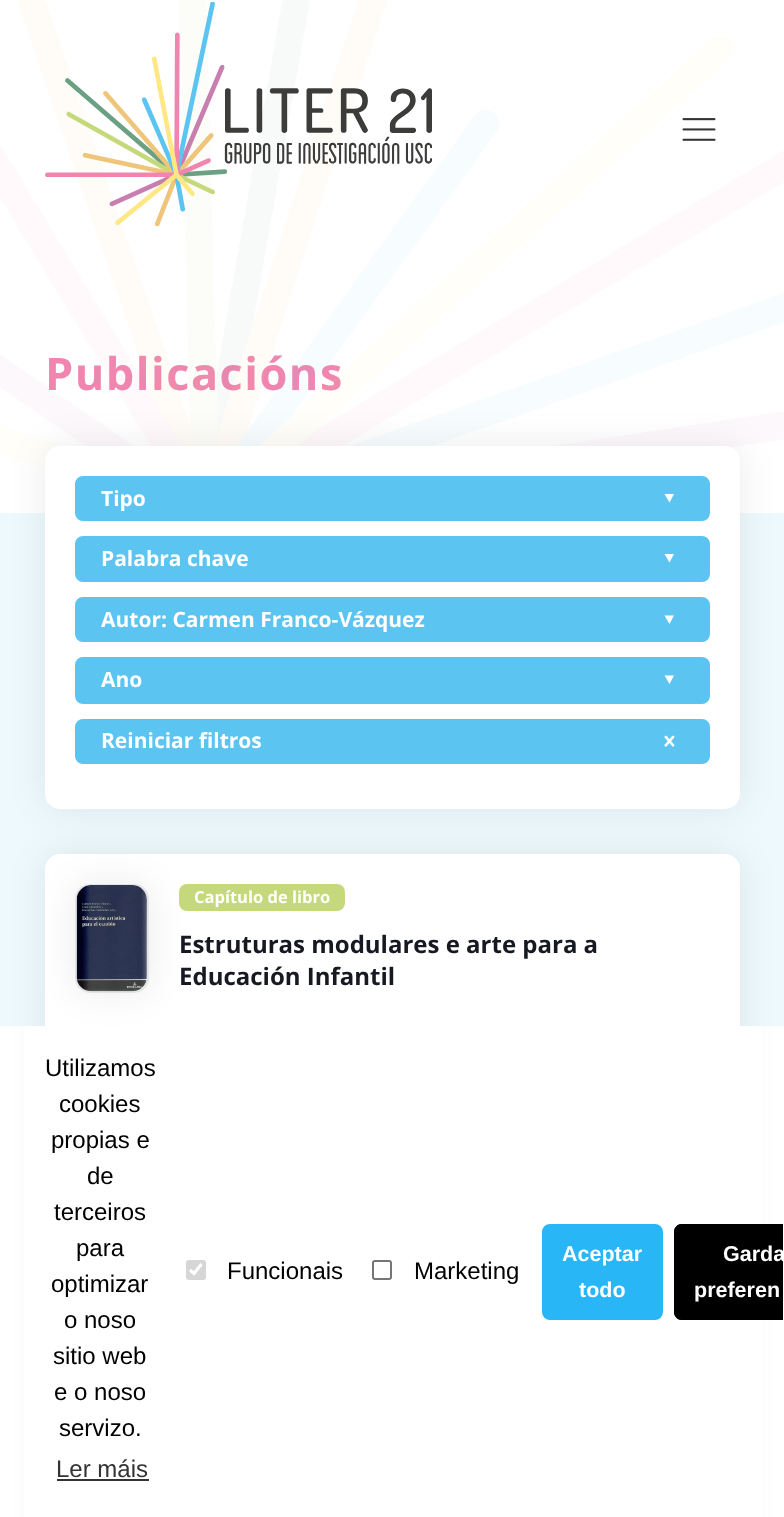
<svg xmlns="http://www.w3.org/2000/svg" xmlns:xlink="http://www.w3.org/1999/xlink" width="784" height="1517" viewBox="0 0 784 1517">
<style>
.cls-1{font:bold 45px Open Sans;letter-spacing:1.5px;fill:#f086b0}
.cls-2{font:bold 21px Open Sans;fill:#ffffff}
.cls-3{font:bold 16.5px Open Sans;fill:#ffffff}
.cls-4{font:bold 24px Open Sans;fill:#161922}
.cls-5{font:24px Liberation Sans;fill:#000000}
.cls-6{font:24px Liberation Sans;fill:#333333}
.cls-7{font:bold 21.5px Liberation Sans;fill:#ffffff}
</style>
<defs>
<clipPath id="clip1"><rect x="2" y="1028" width="781" height="489"/></clipPath>
</defs>
<rect width="100%" height="100%" fill="#ffffff"/>
<rect fill="#eef9fd" x="0" y="513" width="784" height="513"/>
<text class="cls-1" x="45" y="390">Publicacións</text>
<image xlink:href="image2.png" x="0" y="0" width="784" height="469"/>
<image xlink:href="image1.png" x="682" y="118" width="34" height="23"/>
<image xlink:href="image0.png" x="45" y="2" width="387" height="225"/>
<rect fill="#000000" fill-opacity="0.08" filter="blur(18px)" x="45" y="446" width="695" height="363" rx="15"/>
<rect fill="#ffffff" x="45" y="446" width="695" height="363" rx="15"/>
<rect fill="#5cc4f1" stroke="#5cc4f1" stroke-width="3" x="76.5" y="477.5" width="632" height="42" rx="6.5"/>
<text class="cls-2" x="101" y="506">Tipo</text>
<path fill="#ffffff" d="M674 494L669.5 502.5L664.5 494Z"/>
<rect fill="#5cc4f1" stroke="#5cc4f1" stroke-width="3" x="76.5" y="537.5" width="632" height="43" rx="6.5"/>
<text class="cls-2" x="101" y="566">Palabra chave</text>
<path fill="#ffffff" d="M674 554L669.5 562.5L664.5 554Z"/>
<rect fill="#5cc4f1" stroke="#5cc4f1" stroke-width="3" x="76.5" y="598.5" width="632" height="42" rx="6.5"/>
<text class="cls-2" x="101" y="627">Autor: Carmen Franco-Vázquez</text>
<path fill="#ffffff" d="M674 615.5L669.5 624L664.5 615.5Z"/>
<rect fill="#5cc4f1" stroke="#5cc4f1" stroke-width="3" x="76.5" y="658.5" width="632" height="44" rx="6.5"/>
<text class="cls-2" x="101" y="687">Ano</text>
<path fill="#ffffff" d="M674 675.5L669.5 684L664.5 675.5Z"/>
<rect fill="#5cc4f1" stroke="#5cc4f1" stroke-width="3" x="76.5" y="720.5" width="632" height="42" rx="6.5"/>
<text class="cls-2" x="101" y="748">Reiniciar filtros</text>
<image xlink:href="image3.png" x="664" y="735" width="11" height="12"/>
<rect fill="#000000" fill-opacity="0.08" filter="blur(18px)" x="45" y="854" width="695" height="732" rx="15"/>
<rect fill="#ffffff" x="45" y="854" width="695" height="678" rx="15"/>
<rect fill="#000000" fill-opacity="0.08" filter="blur(18px)" x="75" y="884" width="74" height="109" rx="15"/>
<rect fill="none" stroke="#e3e3e3" stroke-width="2" x="76" y="885" width="72" height="107" rx="14"/>
<image xlink:href="image4.png" x="76" y="885" width="71" height="107"/>
<rect fill="#c5d97c" x="179" y="884" width="166" height="27" rx="8"/>
<text class="cls-3" x="194" y="903">Capítulo de libro</text>
<text class="cls-4"><tspan x="179" y="953">Estruturas modulares e arte para a</tspan><tspan x="179" y="985">Educación Infantil</tspan></text>
<rect fill="#ffffff" x="24" y="1026" width="737" height="491"/>
<text class="cls-5" x="45" y="1076">Utilizamos</text>
<text class="cls-5" x="59" y="1112">cookies</text>
<text class="cls-5" x="51" y="1148">propias e</text>
<text class="cls-5" x="87" y="1184">de</text>
<text class="cls-5" x="54" y="1220">terceiros</text>
<text class="cls-5" x="76" y="1256">para</text>
<text class="cls-5" x="51" y="1292">optimizar</text>
<text class="cls-5" x="64" y="1328">o noso</text>
<text class="cls-5" x="53" y="1364">sitio web</text>
<text class="cls-5" x="54" y="1400">e o noso</text>
<text class="cls-5" x="59" y="1436">servizo.</text>
<text class="cls-6" x="56" y="1477">Ler máis</text>
<rect fill="#333333" x="57" y="1479" width="92" height="2"/>
<rect fill="#d6d6d6" x="186" y="1260" width="20" height="20" rx="3"/>
<path fill="none" stroke="#ffffff" stroke-width="3.1" d="M190 1270L194 1273.5L201.5 1264"/>
<text class="cls-5" x="227" y="1279">Funcionais</text>
<rect fill="none" stroke="#767676" stroke-width="2" x="373" y="1261" width="18" height="18" rx="2"/>
<text class="cls-5" x="414" y="1279">Marketing</text>
<rect fill="#29b6f6" stroke="#29b6f6" stroke-width="3" x="543.5" y="1225.5" width="118" height="93" rx="6.5"/>
<text class="cls-7" x="562" y="1261">Aceptar</text>
<text class="cls-7" x="579" y="1297">todo</text>
<path fill="#000000" d="M682 1224H783V1320H682C677.5 1320 674 1316.5 674 1312V1232C674 1227.5 677.5 1224 682 1224Z"/>
<g clip-path="url(#clip1)">
<rect fill="none" stroke="#000000" stroke-width="3" x="675.5" y="1225.5" width="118" height="93" rx="6.5"/>
<text class="cls-7" x="723" y="1261">Garda</text>
</g>
<text class="cls-7" x="694" y="1297">preferen</text>
</svg>
